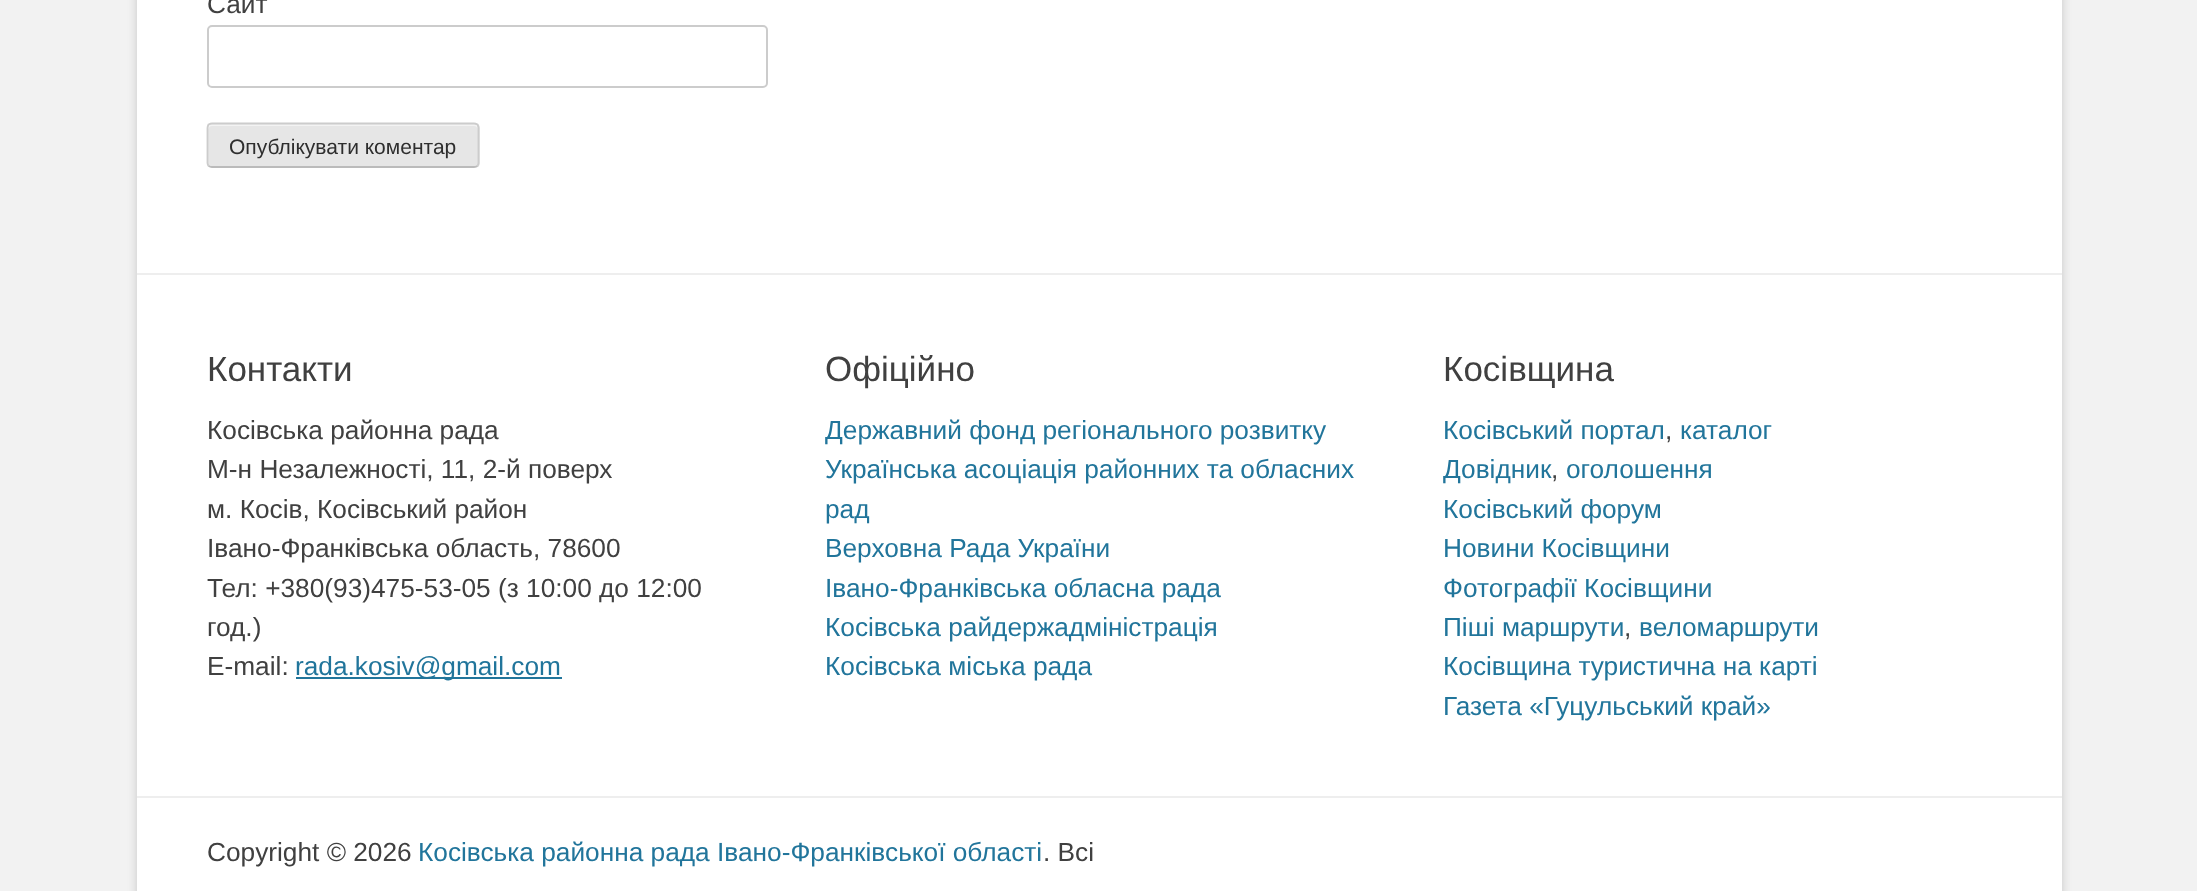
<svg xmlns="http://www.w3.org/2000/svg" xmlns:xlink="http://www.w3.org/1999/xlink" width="2197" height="891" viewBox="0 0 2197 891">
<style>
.cls-1{font:26.25px Liberation Sans;fill:#404040}
.cls-2{font:21px Liberation Sans;fill:#2e2e2e}
.cls-3{font:35px Liberation Sans;fill:#404040}
.cls-4{font:26.25px Liberation Sans;fill:#21759b}
</style>
<rect width="100%" height="100%" fill="#f2f2f2"/>
<rect fill="#646464" fill-opacity="0.3" filter="blur(5px)" x="137" y="-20" width="1925" height="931" rx="5"/>
<rect fill="#ffffff" x="137" y="0" width="1925" height="891"/>
<rect fill="none" stroke="#cccccc" stroke-width="2" x="208" y="26" width="559" height="61" rx="4"/>
<rect fill="#e6e6e6" x="207" y="123" width="273" height="45" rx="5"/>
<path fill="#f3f3f3" d="M212 126H474C476 126 478 128 478 130C478 127 478 124 474 124H212C208 124 208 127 208 130C208 128 210 126 212 126Z"/>
<path fill="none" stroke="#bbbbbb" stroke-width="1.8" d="M477.5 166C476.5 166.5 475.5 167 474 167H212C210.5 167 209.5 166.5 208.5 166"/>
<path fill="none" stroke="#cccccc" stroke-width="1.8" d="M208.5 166C208 165 207.5 164 207.5 163V128C207.5 126.5 208 125.5 208.5 124.5C209.5 124 210.5 123.5 212 123.5H474C475.5 123.5 476.5 124 477.5 124.5C478 125.5 478.5 126.5 478.5 128V163C478.5 164 478 165 477.5 166"/>
<rect fill="#eeeeee" x="137" y="273" width="1925" height="2"/>
<rect fill="#21759b" x="296" y="677" width="266" height="2"/>
<rect fill="#eeeeee" x="137" y="796" width="1925" height="2"/>
<text class="cls-1" x="207" y="13">Сайт</text>
<text class="cls-2" x="229" y="154">Опублікувати коментар</text>
<text class="cls-3" x="207" y="381">Контакти</text>
<text class="cls-1"><tspan x="207" y="439">Косівська районна рада</tspan><tspan x="207" y="478">М-н Незалежності, 11, 2-й поверх</tspan><tspan x="207" y="518">м. Косів, Косівський район</tspan><tspan x="207" y="557">Івано-Франківська область, 78600</tspan><tspan x="207" y="597">Тел: +380(93)475-53-05 (з 10:00 до 12:00</tspan><tspan x="207" y="636">год.)</tspan><tspan x="207" y="675">E-mail:</tspan></text>
<text class="cls-4" x="295" y="675">rada.kosiv@gmail.com</text>
<text class="cls-3" x="825" y="381">Офіційно</text>
<text class="cls-4"><tspan x="825" y="439">Державний фонд регіонального розвитку</tspan><tspan x="825" y="478">Українська асоціація районних та обласних</tspan><tspan x="825" y="518">рад</tspan><tspan x="825" y="557">Верховна Рада України</tspan><tspan x="825" y="597">Івано-Франківська обласна рада</tspan><tspan x="825" y="636">Косівська райдержадміністрація</tspan><tspan x="825" y="675">Косівська міська рада</tspan></text>
<text class="cls-3" x="1443" y="381">Косівщина</text>
<text class="cls-4" x="1443" y="439">Косівський портал</text>
<text class="cls-1" x="1665" y="439">,</text>
<text class="cls-4" x="1680" y="439">каталог</text>
<text class="cls-4" x="1443" y="478">Довідник</text>
<text class="cls-1" x="1551" y="478">,</text>
<text class="cls-4" x="1566" y="478">оголошення</text>
<text class="cls-4"><tspan x="1443" y="518">Косівський форум</tspan><tspan x="1443" y="557">Новини Косівщини</tspan><tspan x="1443" y="597">Фотографії Косівщини</tspan><tspan x="1443" y="636">Піші маршрути</tspan></text>
<text class="cls-1" x="1624" y="636">,</text>
<text class="cls-4" x="1639" y="636">веломаршрути</text>
<text class="cls-4"><tspan x="1443" y="675">Косівщина туристична на карті</tspan><tspan x="1443" y="715">Газета «Гуцульський край»</tspan></text>
<text class="cls-1" x="207" y="861">Copyright © 2026</text>
<text class="cls-4" x="418" y="861">Косівська районна рада Івано-Франківської області</text>
<text class="cls-1" x="1043" y="861">. Всі</text>
</svg>
